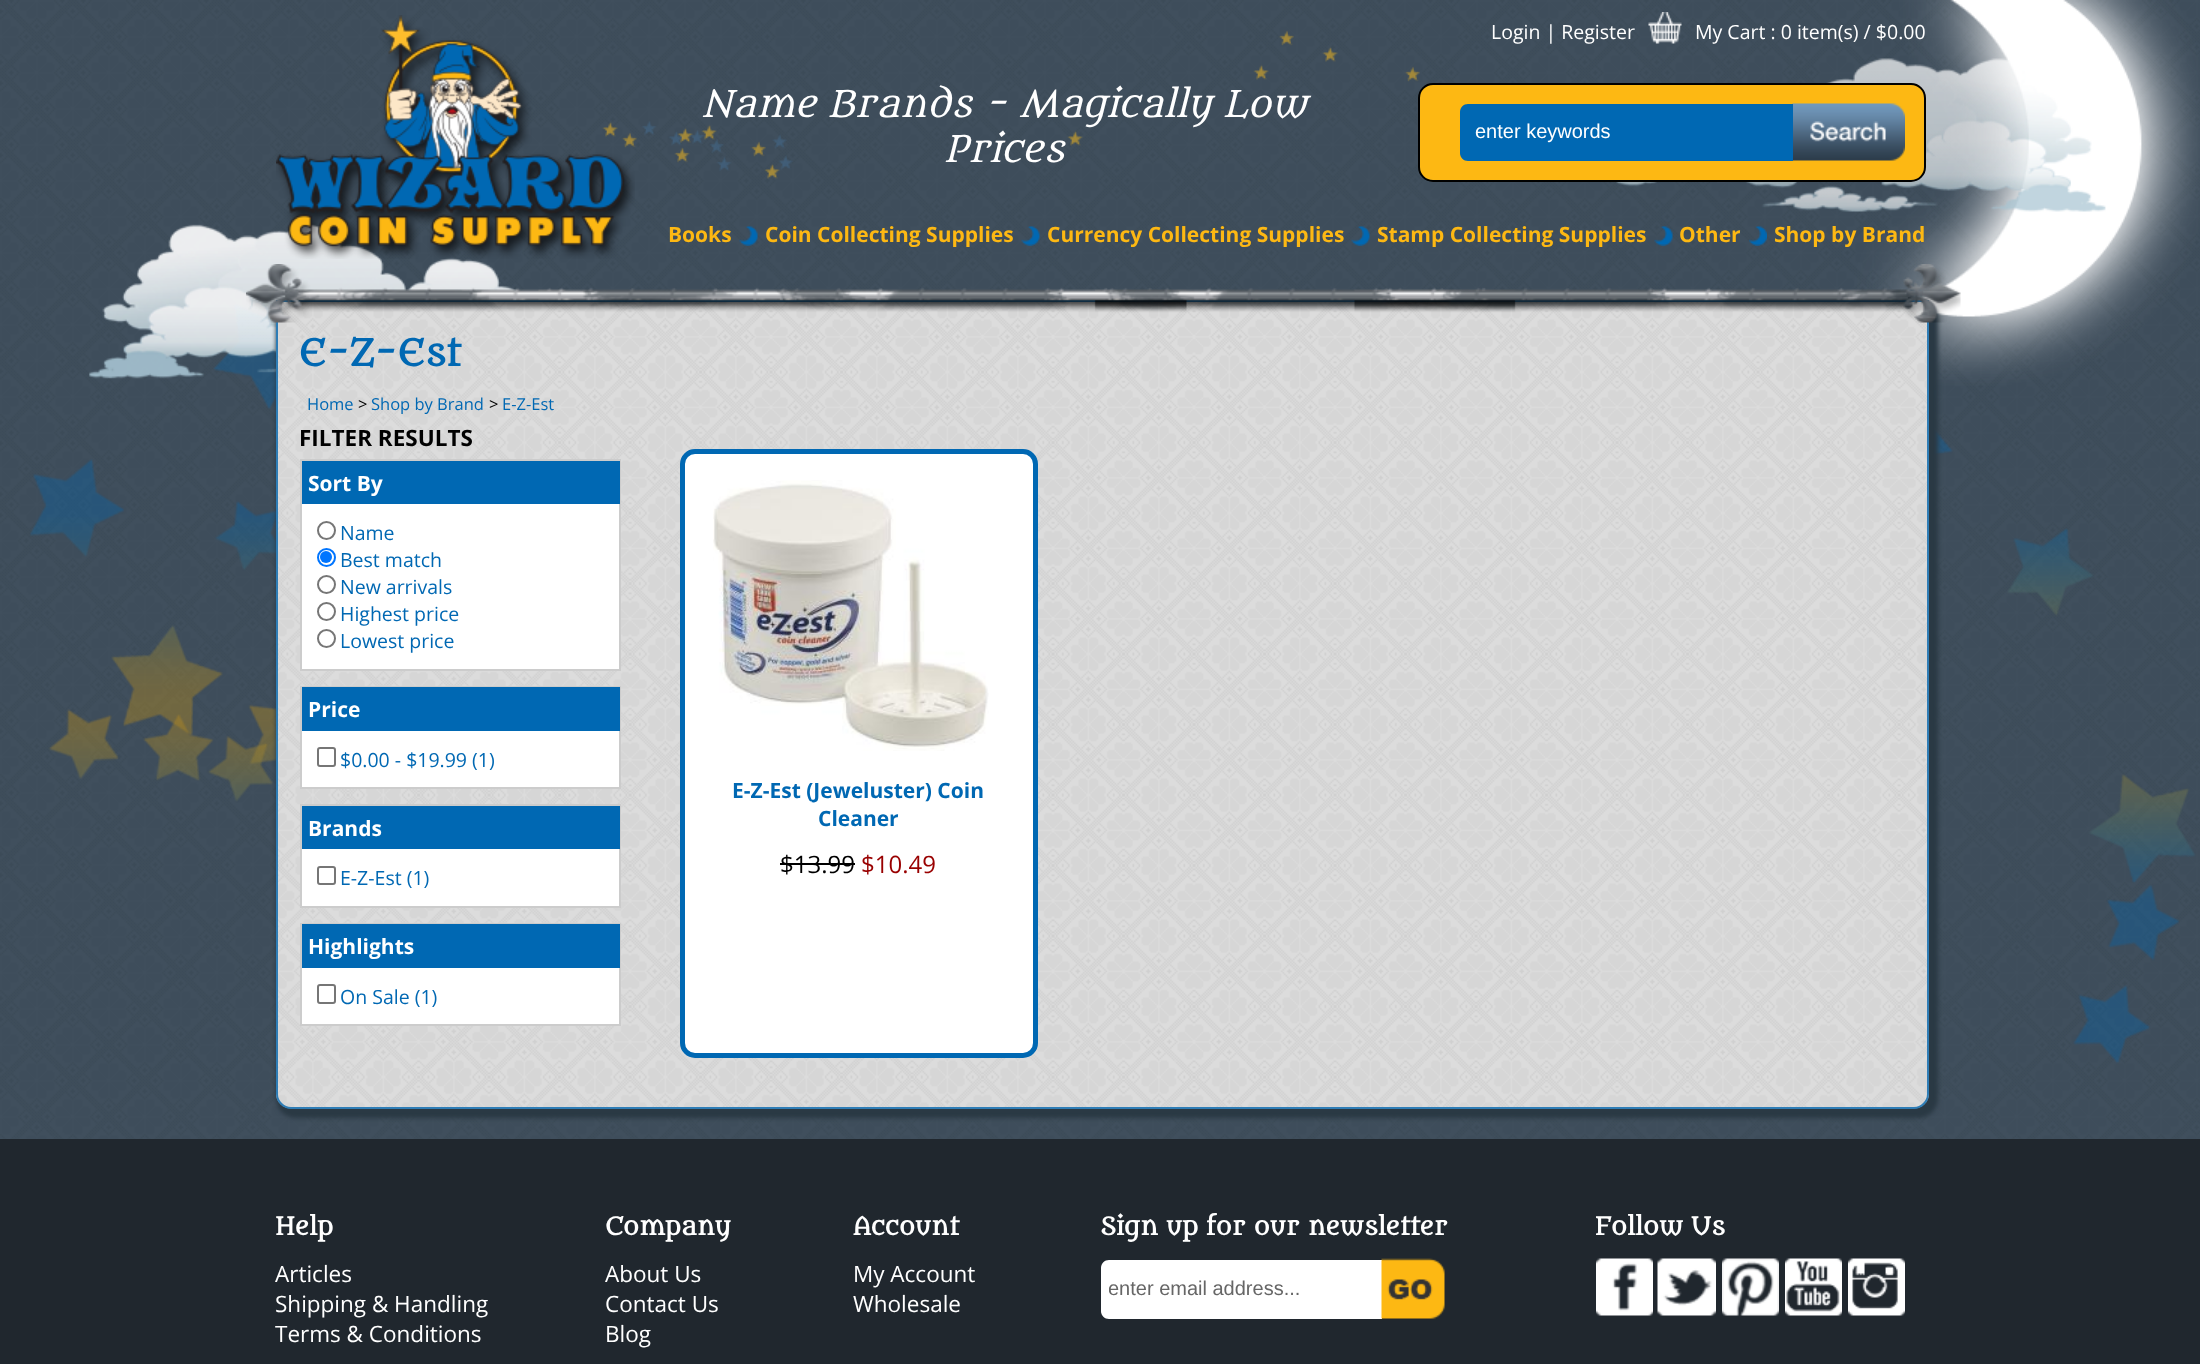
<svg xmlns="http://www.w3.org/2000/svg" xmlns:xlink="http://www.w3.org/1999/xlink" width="2200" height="1364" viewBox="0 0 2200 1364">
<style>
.cls-1{font:italic 36px Metamorphous;fill:#ffffff}
.cls-2{font:19.5px Open Sans;fill:#ffffff}
.cls-3{font:20px Liberation Sans;fill:#ffffff}
.cls-4{font:bold 21px Open Sans;fill:#fdb813}
.cls-5{font:bold 36px Metamorphous;fill:#0068b3}
.cls-6{font:16.5px Open Sans;fill:#0068b3}
.cls-7{font:16.5px Open Sans;fill:#000000}
.cls-8{font:bold 22.5px Open Sans;fill:#000000}
.cls-9{font:bold 21px Open Sans;fill:#ffffff}
.cls-10{font:19.5px Open Sans;fill:#0068b3}
.cls-11{font:bold 21px Open Sans;fill:#0068b3}
.cls-12{font:24px Open Sans;fill:#000000}
.cls-13{font:24px Open Sans;fill:#990000}
.cls-14{font:bold 24px Metamorphous;fill:#ffffff}
.cls-15{font:22.5px Open Sans;fill:#ffffff}
.cls-16{font:20px Liberation Sans;fill:#666666}
</style>
<defs>
<clipPath id="clip1"><rect x="1109" y="1278" width="265" height="23"/></clipPath>
</defs>
<rect width="100%" height="100%" fill="#ffffff"/>
<image xlink:href="image0.png" x="0" y="0" width="2200" height="1139"/>
<image xlink:href="image1.png" x="30" y="0" width="2170" height="1064"/>
<image xlink:href="image2.png" x="276" y="15" width="359" height="244"/>
<image xlink:href="image3.png" x="1648" y="12" width="34" height="32"/>
<rect fill="#fdb813" stroke="#000000" stroke-width="2" x="1419" y="84" width="506" height="97" rx="14"/>
<image xlink:href="image4.png" x="1792" y="103" width="113" height="58"/>
<path fill="#0068b3" d="M1468 104H1793V161H1468C1463.5 161 1460 157.5 1460 153V112C1460 107.5 1463.5 104 1468 104Z"/>
<image xlink:href="image5.png" x="739" y="226" width="19" height="20"/>
<image xlink:href="image6.png" x="1021" y="226" width="19" height="20"/>
<image xlink:href="image7.png" x="1351" y="226" width="19" height="20"/>
<image xlink:href="image8.png" x="1654" y="226" width="19" height="20"/>
<image xlink:href="image9.png" x="1749" y="226" width="18" height="20"/>
<rect fill="#2a3944" filter="blur(2px)" x="276" y="300" width="1662" height="818" rx="20"/>
<image xlink:href="image11.png" x="276" y="302" width="1653" height="807"/>
<path fill="none" stroke="#2e7db6" stroke-width="2" d="M277 301H1928V1094C1928 1101.5 1921.5 1108 1914 1108H291C283.5 1108 277 1101.5 277 1094Z"/>
<image xlink:href="image10.png" x="246" y="264" width="1715" height="59"/>
<rect fill="#ffffff" x="302" y="504" width="317" height="165"/>
<rect fill="none" stroke="#cccccc" stroke-width="2" x="301" y="460" width="319" height="210"/>
<rect fill="#0068b3" x="302" y="461" width="318" height="43"/>
<circle fill="none" stroke="#767676" stroke-width="2" cx="326.5" cy="530.5" r="8.5"/>
<circle fill="none" stroke="#0075ff" stroke-width="2" cx="326.5" cy="557.5" r="8.5"/>
<circle fill="#0075ff" cx="326" cy="557" r="6"/>
<circle fill="none" stroke="#767676" stroke-width="2" cx="326.5" cy="584.5" r="8.5"/>
<circle fill="none" stroke="#767676" stroke-width="2" cx="326.5" cy="611.5" r="8.5"/>
<circle fill="none" stroke="#767676" stroke-width="2" cx="326.5" cy="638.5" r="8.5"/>
<rect fill="#ffffff" x="302" y="731" width="317" height="56"/>
<rect fill="none" stroke="#cccccc" stroke-width="2" x="301" y="687" width="319" height="101"/>
<rect fill="#0068b3" x="302" y="687" width="318" height="44"/>
<rect fill="none" stroke="#767676" stroke-width="2" x="318" y="748" width="17" height="18" rx="2"/>
<rect fill="#ffffff" x="302" y="849" width="317" height="57"/>
<rect fill="none" stroke="#cccccc" stroke-width="2" x="301" y="805" width="319" height="102"/>
<rect fill="#0068b3" x="302" y="806" width="318" height="43"/>
<rect fill="none" stroke="#767676" stroke-width="2" x="318" y="867" width="17" height="17" rx="2"/>
<rect fill="#ffffff" x="302" y="968" width="317" height="56"/>
<rect fill="none" stroke="#cccccc" stroke-width="2" x="301" y="924" width="319" height="101"/>
<rect fill="#0068b3" x="302" y="924" width="318" height="44"/>
<rect fill="none" stroke="#767676" stroke-width="2" x="318" y="985" width="17" height="18" rx="2"/>
<rect fill="#ffffff" stroke="#0068b3" stroke-width="5" x="682.5" y="451.5" width="353" height="604" rx="12.5"/>
<image xlink:href="image12.png" x="713" y="480" width="276" height="271"/>
<rect fill="#000000" x="780" y="863" width="75" height="2"/>
<rect fill="#20272e" x="0" y="1139" width="2200" height="225"/>
<path fill="#ffffff" d="M1109 1260H1382V1319H1109C1104.5 1319 1101 1315.5 1101 1311V1268C1101 1263.5 1104.5 1260 1109 1260Z"/>
<image xlink:href="image13.png" x="1381" y="1258" width="64" height="61"/>
<image xlink:href="image14.png" x="1596" y="1258" width="57" height="58"/>
<image xlink:href="image15.png" x="1657" y="1258" width="59" height="58"/>
<image xlink:href="image16.png" x="1722" y="1258" width="57" height="58"/>
<image xlink:href="image17.png" x="1785" y="1258" width="57" height="58"/>
<image xlink:href="image18.png" x="1848" y="1258" width="57" height="58"/>
<text class="cls-1" x="702" y="117">Name Brands - Magically Low</text>
<text class="cls-1" x="944" y="162">Prices</text>
<text class="cls-2" x="1491" y="39">Login | Register</text>
<text class="cls-2" x="1695" y="39">My Cart : 0 item(s) / $0.00</text>
<text class="cls-3" x="1475" y="138">enter keywords</text>
<text class="cls-4" x="668" y="242">Books</text>
<text class="cls-4" x="765" y="242">Coin Collecting Supplies</text>
<text class="cls-4" x="1047" y="242">Currency Collecting Supplies</text>
<text class="cls-4" x="1377" y="242">Stamp Collecting Supplies</text>
<text class="cls-4" x="1679" y="242">Other</text>
<text class="cls-4" x="1774" y="242">Shop by Brand</text>
<text class="cls-5" x="299" y="366">E-Z-Est</text>
<text class="cls-6" x="307" y="410">Home</text>
<text class="cls-7" x="358" y="410">&gt;</text>
<text class="cls-6" x="371" y="410">Shop by Brand</text>
<text class="cls-7" x="489" y="410">&gt;</text>
<text class="cls-6" x="502" y="410">E-Z-Est</text>
<text class="cls-8" x="299" y="446">FILTER RESULTS</text>
<text class="cls-9" x="308" y="491">Sort By</text>
<text class="cls-10"><tspan x="340" y="540">Name</tspan><tspan x="340" y="567">Best match</tspan><tspan x="340" y="594">New arrivals</tspan><tspan x="340" y="621">Highest price</tspan><tspan x="340" y="648">Lowest price</tspan></text>
<text class="cls-9" x="308" y="717">Price</text>
<text class="cls-10" x="340" y="767">$0.00 - $19.99 (1)</text>
<text class="cls-9" x="308" y="836">Brands</text>
<text class="cls-10" x="340" y="885">E-Z-Est (1)</text>
<text class="cls-9" x="308" y="954">Highlights</text>
<text class="cls-10" x="340" y="1004">On Sale (1)</text>
<text class="cls-11" x="732" y="798">E-Z-Est (Jeweluster) Coin</text>
<text class="cls-11" x="818" y="826">Cleaner</text>
<text class="cls-12" x="780" y="873">$13.99</text>
<text class="cls-13" x="861" y="873">$10.49</text>
<text class="cls-14" x="275" y="1235">Help</text>
<text class="cls-15"><tspan x="275" y="1282">Articles</tspan><tspan x="275" y="1312">Shipping &amp; Handling</tspan><tspan x="275" y="1342">Terms &amp; Conditions</tspan></text>
<text class="cls-14" x="605" y="1235">Company</text>
<text class="cls-15"><tspan x="605" y="1282">About Us</tspan><tspan x="605" y="1312">Contact Us</tspan><tspan x="605" y="1342">Blog</tspan></text>
<text class="cls-14" x="853" y="1235">Account</text>
<text class="cls-15"><tspan x="853" y="1282">My Account</tspan><tspan x="853" y="1312">Wholesale</tspan></text>
<text class="cls-14" x="1100" y="1235">Sign up for our newsletter</text>
<g clip-path="url(#clip1)">
<text class="cls-16" x="1108" y="1295">enter email address...</text>
</g>
<text class="cls-14" x="1595" y="1235">Follow Us</text>
</svg>
